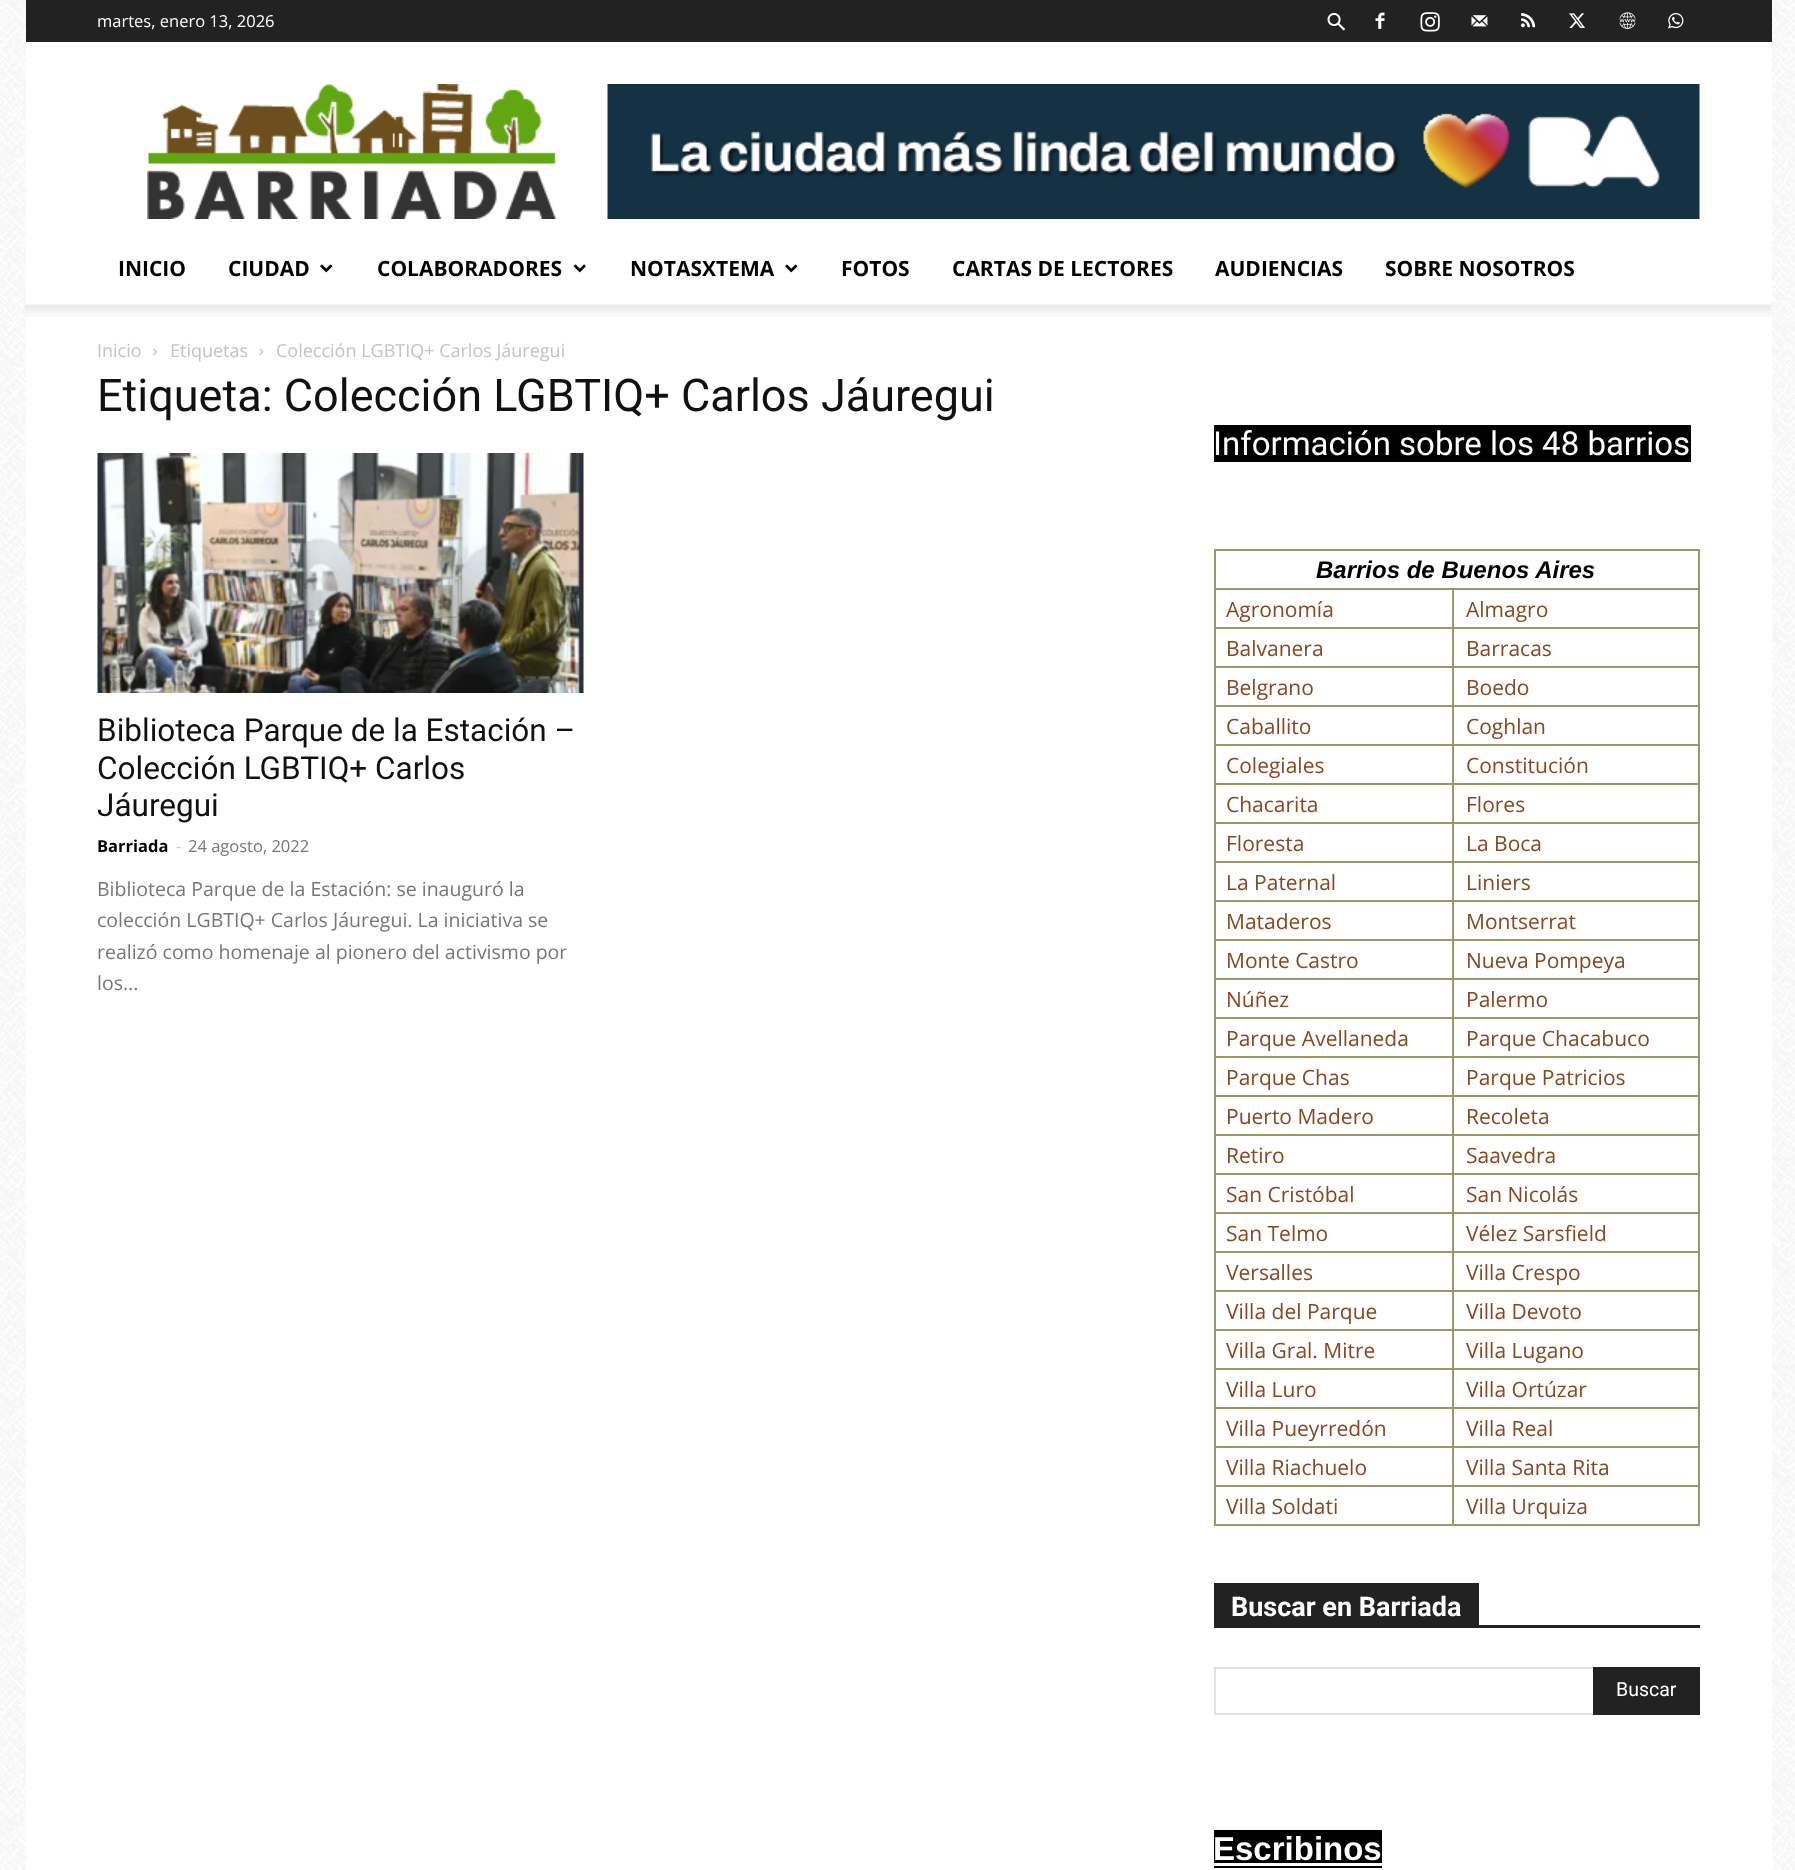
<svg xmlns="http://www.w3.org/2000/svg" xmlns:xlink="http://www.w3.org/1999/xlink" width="1795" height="1870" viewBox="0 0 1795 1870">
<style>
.cls-1{font:16.5px Open Sans;fill:#ffffff}
.cls-2{font:bold 21px Open Sans;fill:#000000}
.cls-3{font:18px Open Sans;fill:#c3c3c3}
.cls-4{font:45px Roboto;fill:#111111}
.cls-5{font:31.5px Roboto;fill:#111111}
.cls-6{font:bold 16.5px Open Sans;fill:#000000}
.cls-7{font:16.5px Open Sans;fill:#cccccc}
.cls-8{font:16.5px Open Sans;fill:#767676}
.cls-9{font:19.5px Open Sans;fill:#767676}
.cls-10{font:33px Roboto;fill:#ffffff}
.cls-11{font:italic bold 24px Liberation Sans;fill:#000000}
.cls-12{font:21px Open Sans;fill:#874821}
.cls-13{font:bold 27px Roboto;fill:#ffffff}
.cls-14{font:19.5px Roboto;fill:#ffffff}
.cls-15{font:bold 33px Liberation Sans;fill:#ffffff}
</style>
<rect width="100%" height="100%" fill="#ffffff"/>
<image xlink:href="image0.png" x="0" y="0" width="1795" height="1870"/>
<rect fill="#222222" x="26" y="0" width="1746" height="42"/>
<image xlink:href="image1.png" x="1327" y="13" width="18" height="18"/>
<image xlink:href="image2.png" x="1375" y="12" width="10" height="17"/>
<image xlink:href="image3.png" x="1420" y="12" width="20" height="20"/>
<image xlink:href="image4.png" x="1471" y="15" width="17" height="12"/>
<image xlink:href="image5.png" x="1521" y="13" width="15" height="15"/>
<image xlink:href="image6.png" x="1569" y="13" width="16" height="15"/>
<image xlink:href="image7.png" x="1619" y="12" width="17" height="17"/>
<image xlink:href="image8.png" x="1668" y="13" width="16" height="16"/>
<rect fill="#ffffff" x="26" y="42" width="1746" height="263"/>
<image xlink:href="image9.png" x="147" y="84" width="410" height="135"/>
<image xlink:href="image10.png" x="607" y="84" width="1093" height="135"/>
<image xlink:href="image11.png" x="320" y="264" width="13" height="9"/>
<image xlink:href="image12.png" x="573" y="264" width="13" height="9"/>
<image xlink:href="image11.png" x="785" y="264" width="13" height="9"/>
<rect fill="#ffffff" x="26" y="305" width="1746" height="1565"/>
<image xlink:href="image13.png" x="25" y="304" width="1747" height="13"/>
<image xlink:href="image14.png" x="153" y="348" width="4" height="8"/>
<image xlink:href="image15.png" x="259" y="348" width="5" height="8"/>
<image xlink:href="image16.png" x="97" y="453" width="487" height="240"/>
<rect fill="#000000" x="1214" y="425" width="477" height="37"/>
<rect fill="#999966" x="1214" y="549" width="486" height="2"/>
<rect fill="#999966" x="1452" y="588" width="248" height="2"/>
<rect fill="#999966" x="1452" y="627" width="248" height="2"/>
<rect fill="#999966" x="1452" y="666" width="248" height="2"/>
<rect fill="#999966" x="1452" y="705" width="248" height="2"/>
<rect fill="#999966" x="1452" y="744" width="248" height="2"/>
<rect fill="#999966" x="1452" y="783" width="248" height="2"/>
<rect fill="#999966" x="1452" y="822" width="248" height="2"/>
<rect fill="#999966" x="1452" y="861" width="248" height="2"/>
<rect fill="#999966" x="1452" y="900" width="248" height="2"/>
<rect fill="#999966" x="1452" y="939" width="248" height="2"/>
<rect fill="#999966" x="1452" y="978" width="248" height="2"/>
<rect fill="#999966" x="1452" y="1017" width="248" height="2"/>
<rect fill="#999966" x="1452" y="1056" width="248" height="2"/>
<rect fill="#999966" x="1452" y="1095" width="248" height="2"/>
<rect fill="#999966" x="1452" y="1134" width="248" height="2"/>
<rect fill="#999966" x="1452" y="1173" width="248" height="2"/>
<rect fill="#999966" x="1452" y="1212" width="248" height="2"/>
<rect fill="#999966" x="1452" y="1251" width="248" height="2"/>
<rect fill="#999966" x="1452" y="1290" width="248" height="2"/>
<rect fill="#999966" x="1452" y="1329" width="248" height="2"/>
<rect fill="#999966" x="1452" y="1368" width="248" height="2"/>
<rect fill="#999966" x="1452" y="1407" width="248" height="2"/>
<rect fill="#999966" x="1452" y="1446" width="248" height="2"/>
<rect fill="#999966" x="1452" y="1485" width="248" height="2"/>
<rect fill="#999966" x="1698" y="1485" width="2" height="41"/>
<rect fill="#999966" x="1698" y="1446" width="2" height="41"/>
<rect fill="#999966" x="1698" y="1407" width="2" height="41"/>
<rect fill="#999966" x="1698" y="1368" width="2" height="41"/>
<rect fill="#999966" x="1698" y="1329" width="2" height="41"/>
<rect fill="#999966" x="1698" y="1290" width="2" height="41"/>
<rect fill="#999966" x="1698" y="1251" width="2" height="41"/>
<rect fill="#999966" x="1698" y="1212" width="2" height="41"/>
<rect fill="#999966" x="1698" y="1173" width="2" height="41"/>
<rect fill="#999966" x="1698" y="1134" width="2" height="41"/>
<rect fill="#999966" x="1698" y="1095" width="2" height="41"/>
<rect fill="#999966" x="1698" y="1056" width="2" height="41"/>
<rect fill="#999966" x="1698" y="1017" width="2" height="41"/>
<rect fill="#999966" x="1698" y="978" width="2" height="41"/>
<rect fill="#999966" x="1698" y="939" width="2" height="41"/>
<rect fill="#999966" x="1698" y="900" width="2" height="41"/>
<rect fill="#999966" x="1698" y="861" width="2" height="41"/>
<rect fill="#999966" x="1698" y="822" width="2" height="41"/>
<rect fill="#999966" x="1698" y="783" width="2" height="41"/>
<rect fill="#999966" x="1698" y="744" width="2" height="41"/>
<rect fill="#999966" x="1698" y="705" width="2" height="41"/>
<rect fill="#999966" x="1698" y="666" width="2" height="41"/>
<rect fill="#999966" x="1698" y="627" width="2" height="41"/>
<rect fill="#999966" x="1698" y="588" width="2" height="41"/>
<rect fill="#999966" x="1698" y="549" width="2" height="41"/>
<rect fill="#999966" x="1452" y="1524" width="248" height="2"/>
<rect fill="#999966" x="1452" y="1485" width="2" height="41"/>
<rect fill="#999966" x="1214" y="1485" width="240" height="2"/>
<rect fill="#999966" x="1452" y="1446" width="2" height="41"/>
<rect fill="#999966" x="1214" y="1446" width="240" height="2"/>
<rect fill="#999966" x="1452" y="1407" width="2" height="41"/>
<rect fill="#999966" x="1214" y="1407" width="240" height="2"/>
<rect fill="#999966" x="1452" y="1368" width="2" height="41"/>
<rect fill="#999966" x="1214" y="1368" width="240" height="2"/>
<rect fill="#999966" x="1452" y="1329" width="2" height="41"/>
<rect fill="#999966" x="1214" y="1329" width="240" height="2"/>
<rect fill="#999966" x="1452" y="1290" width="2" height="41"/>
<rect fill="#999966" x="1214" y="1290" width="240" height="2"/>
<rect fill="#999966" x="1452" y="1251" width="2" height="41"/>
<rect fill="#999966" x="1214" y="1251" width="240" height="2"/>
<rect fill="#999966" x="1452" y="1212" width="2" height="41"/>
<rect fill="#999966" x="1214" y="1212" width="240" height="2"/>
<rect fill="#999966" x="1452" y="1173" width="2" height="41"/>
<rect fill="#999966" x="1214" y="1173" width="240" height="2"/>
<rect fill="#999966" x="1452" y="1134" width="2" height="41"/>
<rect fill="#999966" x="1214" y="1134" width="240" height="2"/>
<rect fill="#999966" x="1452" y="1095" width="2" height="41"/>
<rect fill="#999966" x="1214" y="1095" width="240" height="2"/>
<rect fill="#999966" x="1452" y="1056" width="2" height="41"/>
<rect fill="#999966" x="1214" y="1056" width="240" height="2"/>
<rect fill="#999966" x="1452" y="1017" width="2" height="41"/>
<rect fill="#999966" x="1214" y="1017" width="240" height="2"/>
<rect fill="#999966" x="1452" y="978" width="2" height="41"/>
<rect fill="#999966" x="1214" y="978" width="240" height="2"/>
<rect fill="#999966" x="1452" y="939" width="2" height="41"/>
<rect fill="#999966" x="1214" y="939" width="240" height="2"/>
<rect fill="#999966" x="1452" y="900" width="2" height="41"/>
<rect fill="#999966" x="1214" y="900" width="240" height="2"/>
<rect fill="#999966" x="1452" y="861" width="2" height="41"/>
<rect fill="#999966" x="1214" y="861" width="240" height="2"/>
<rect fill="#999966" x="1452" y="822" width="2" height="41"/>
<rect fill="#999966" x="1214" y="822" width="240" height="2"/>
<rect fill="#999966" x="1452" y="783" width="2" height="41"/>
<rect fill="#999966" x="1214" y="783" width="240" height="2"/>
<rect fill="#999966" x="1452" y="744" width="2" height="41"/>
<rect fill="#999966" x="1214" y="744" width="240" height="2"/>
<rect fill="#999966" x="1452" y="705" width="2" height="41"/>
<rect fill="#999966" x="1214" y="705" width="240" height="2"/>
<rect fill="#999966" x="1452" y="666" width="2" height="41"/>
<rect fill="#999966" x="1214" y="666" width="240" height="2"/>
<rect fill="#999966" x="1452" y="627" width="2" height="41"/>
<rect fill="#999966" x="1214" y="627" width="240" height="2"/>
<rect fill="#999966" x="1452" y="588" width="2" height="41"/>
<rect fill="#999966" x="1214" y="588" width="240" height="2"/>
<rect fill="#999966" x="1214" y="1524" width="240" height="2"/>
<rect fill="#999966" x="1214" y="1485" width="2" height="41"/>
<rect fill="#999966" x="1214" y="1446" width="2" height="41"/>
<rect fill="#999966" x="1214" y="1407" width="2" height="41"/>
<rect fill="#999966" x="1214" y="1368" width="2" height="41"/>
<rect fill="#999966" x="1214" y="1329" width="2" height="41"/>
<rect fill="#999966" x="1214" y="1290" width="2" height="41"/>
<rect fill="#999966" x="1214" y="1251" width="2" height="41"/>
<rect fill="#999966" x="1214" y="1212" width="2" height="41"/>
<rect fill="#999966" x="1214" y="1173" width="2" height="41"/>
<rect fill="#999966" x="1214" y="1134" width="2" height="41"/>
<rect fill="#999966" x="1214" y="1095" width="2" height="41"/>
<rect fill="#999966" x="1214" y="1056" width="2" height="41"/>
<rect fill="#999966" x="1214" y="1017" width="2" height="41"/>
<rect fill="#999966" x="1214" y="978" width="2" height="41"/>
<rect fill="#999966" x="1214" y="939" width="2" height="41"/>
<rect fill="#999966" x="1214" y="900" width="2" height="41"/>
<rect fill="#999966" x="1214" y="861" width="2" height="41"/>
<rect fill="#999966" x="1214" y="822" width="2" height="41"/>
<rect fill="#999966" x="1214" y="783" width="2" height="41"/>
<rect fill="#999966" x="1214" y="744" width="2" height="41"/>
<rect fill="#999966" x="1214" y="705" width="2" height="41"/>
<rect fill="#999966" x="1214" y="666" width="2" height="41"/>
<rect fill="#999966" x="1214" y="627" width="2" height="41"/>
<rect fill="#999966" x="1214" y="588" width="2" height="41"/>
<rect fill="#999966" x="1214" y="549" width="2" height="41"/>
<rect fill="#222222" x="1214" y="1625" width="486" height="3"/>
<rect fill="#222222" x="1214" y="1583" width="265" height="42"/>
<rect fill="#e1e1e1" x="1214" y="1667" width="379" height="2"/>
<rect fill="#e1e1e1" x="1214" y="1713" width="379" height="2"/>
<rect fill="#e1e1e1" x="1214" y="1667" width="2" height="48"/>
<rect fill="#222222" x="1593" y="1667" width="107" height="48"/>
<rect fill="#000000" x="1214" y="1830" width="168" height="38"/>
<rect fill="#ffffff" x="1214" y="1863" width="168" height="3"/>
<text class="cls-1" x="97" y="27">martes, enero 13, 2026</text>
<text class="cls-2" x="118" y="276">INICIO</text>
<text class="cls-2" x="228" y="276">CIUDAD</text>
<text class="cls-2" x="377" y="276">COLABORADORES</text>
<text class="cls-2" x="630" y="276">NOTASXTEMA</text>
<text class="cls-2" x="841" y="276">FOTOS</text>
<text class="cls-2" x="952" y="276">CARTAS DE LECTORES</text>
<text class="cls-2" x="1215" y="276">AUDIENCIAS</text>
<text class="cls-2" x="1385" y="276">SOBRE NOSOTROS</text>
<text class="cls-3" x="97" y="357">Inicio</text>
<text class="cls-3" x="170" y="357">Etiquetas</text>
<text class="cls-3" x="276" y="357">Colección LGBTIQ+ Carlos Jáuregui</text>
<text class="cls-4" x="97" y="411">Etiqueta: Colección LGBTIQ+ Carlos Jáuregui</text>
<text class="cls-5"><tspan x="97" y="741">Biblioteca Parque de la Estación –</tspan><tspan x="97" y="779">Colección LGBTIQ+ Carlos</tspan><tspan x="97" y="816">Jáuregui</tspan></text>
<text class="cls-6" x="97" y="852">Barriada</text>
<text class="cls-7" x="176" y="852">-</text>
<text class="cls-8" x="188" y="852">24 agosto, 2022</text>
<text class="cls-9"><tspan x="97" y="896">Biblioteca Parque de la Estación: se inauguró la</tspan><tspan x="97" y="927">colección LGBTIQ+ Carlos Jáuregui. La iniciativa se</tspan><tspan x="97" y="959">realizó como homenaje al pionero del activismo por</tspan><tspan x="97" y="990">los...</tspan></text>
<text class="cls-10" x="1213" y="455">Información sobre los 48 barrios</text>
<text class="cls-11" x="1316" y="578">Barrios de Buenos Aires</text>
<text class="cls-12" x="1226" y="617">Agronomía</text>
<text class="cls-12" x="1466" y="617">Almagro</text>
<text class="cls-12" x="1226" y="656">Balvanera</text>
<text class="cls-12" x="1466" y="656">Barracas</text>
<text class="cls-12" x="1226" y="695">Belgrano</text>
<text class="cls-12" x="1466" y="695">Boedo</text>
<text class="cls-12" x="1226" y="734">Caballito</text>
<text class="cls-12" x="1466" y="734">Coghlan</text>
<text class="cls-12" x="1226" y="773">Colegiales</text>
<text class="cls-12" x="1466" y="773">Constitución</text>
<text class="cls-12" x="1226" y="812">Chacarita</text>
<text class="cls-12" x="1466" y="812">Flores</text>
<text class="cls-12" x="1226" y="851">Floresta</text>
<text class="cls-12" x="1466" y="851">La Boca</text>
<text class="cls-12" x="1226" y="890">La Paternal</text>
<text class="cls-12" x="1466" y="890">Liniers</text>
<text class="cls-12" x="1226" y="929">Mataderos</text>
<text class="cls-12" x="1466" y="929">Montserrat</text>
<text class="cls-12" x="1226" y="968">Monte Castro</text>
<text class="cls-12" x="1466" y="968">Nueva Pompeya</text>
<text class="cls-12" x="1226" y="1007">Núñez</text>
<text class="cls-12" x="1466" y="1007">Palermo</text>
<text class="cls-12" x="1226" y="1046">Parque Avellaneda</text>
<text class="cls-12" x="1466" y="1046">Parque Chacabuco</text>
<text class="cls-12" x="1226" y="1085">Parque Chas</text>
<text class="cls-12" x="1466" y="1085">Parque Patricios</text>
<text class="cls-12" x="1226" y="1124">Puerto Madero</text>
<text class="cls-12" x="1466" y="1124">Recoleta</text>
<text class="cls-12" x="1226" y="1163">Retiro</text>
<text class="cls-12" x="1466" y="1163">Saavedra</text>
<text class="cls-12" x="1226" y="1202">San Cristóbal</text>
<text class="cls-12" x="1466" y="1202">San Nicolás</text>
<text class="cls-12" x="1226" y="1241">San Telmo</text>
<text class="cls-12" x="1466" y="1241">Vélez Sarsfield</text>
<text class="cls-12" x="1226" y="1280">Versalles</text>
<text class="cls-12" x="1466" y="1280">Villa Crespo</text>
<text class="cls-12" x="1226" y="1319">Villa del Parque</text>
<text class="cls-12" x="1466" y="1319">Villa Devoto</text>
<text class="cls-12" x="1226" y="1358">Villa Gral. Mitre</text>
<text class="cls-12" x="1466" y="1358">Villa Lugano</text>
<text class="cls-12" x="1226" y="1397">Villa Luro</text>
<text class="cls-12" x="1466" y="1397">Villa Ortúzar</text>
<text class="cls-12" x="1226" y="1436">Villa Pueyrredón</text>
<text class="cls-12" x="1466" y="1436">Villa Real</text>
<text class="cls-12" x="1226" y="1475">Villa Riachuelo</text>
<text class="cls-12" x="1466" y="1475">Villa Santa Rita</text>
<text class="cls-12" x="1226" y="1514">Villa Soldati</text>
<text class="cls-12" x="1466" y="1514">Villa Urquiza</text>
<text class="cls-13" x="1231" y="1616">Buscar en Barriada</text>
<text class="cls-14" x="1616" y="1696">Buscar</text>
<text class="cls-15" x="1213" y="1860">Escribinos</text>
</svg>
